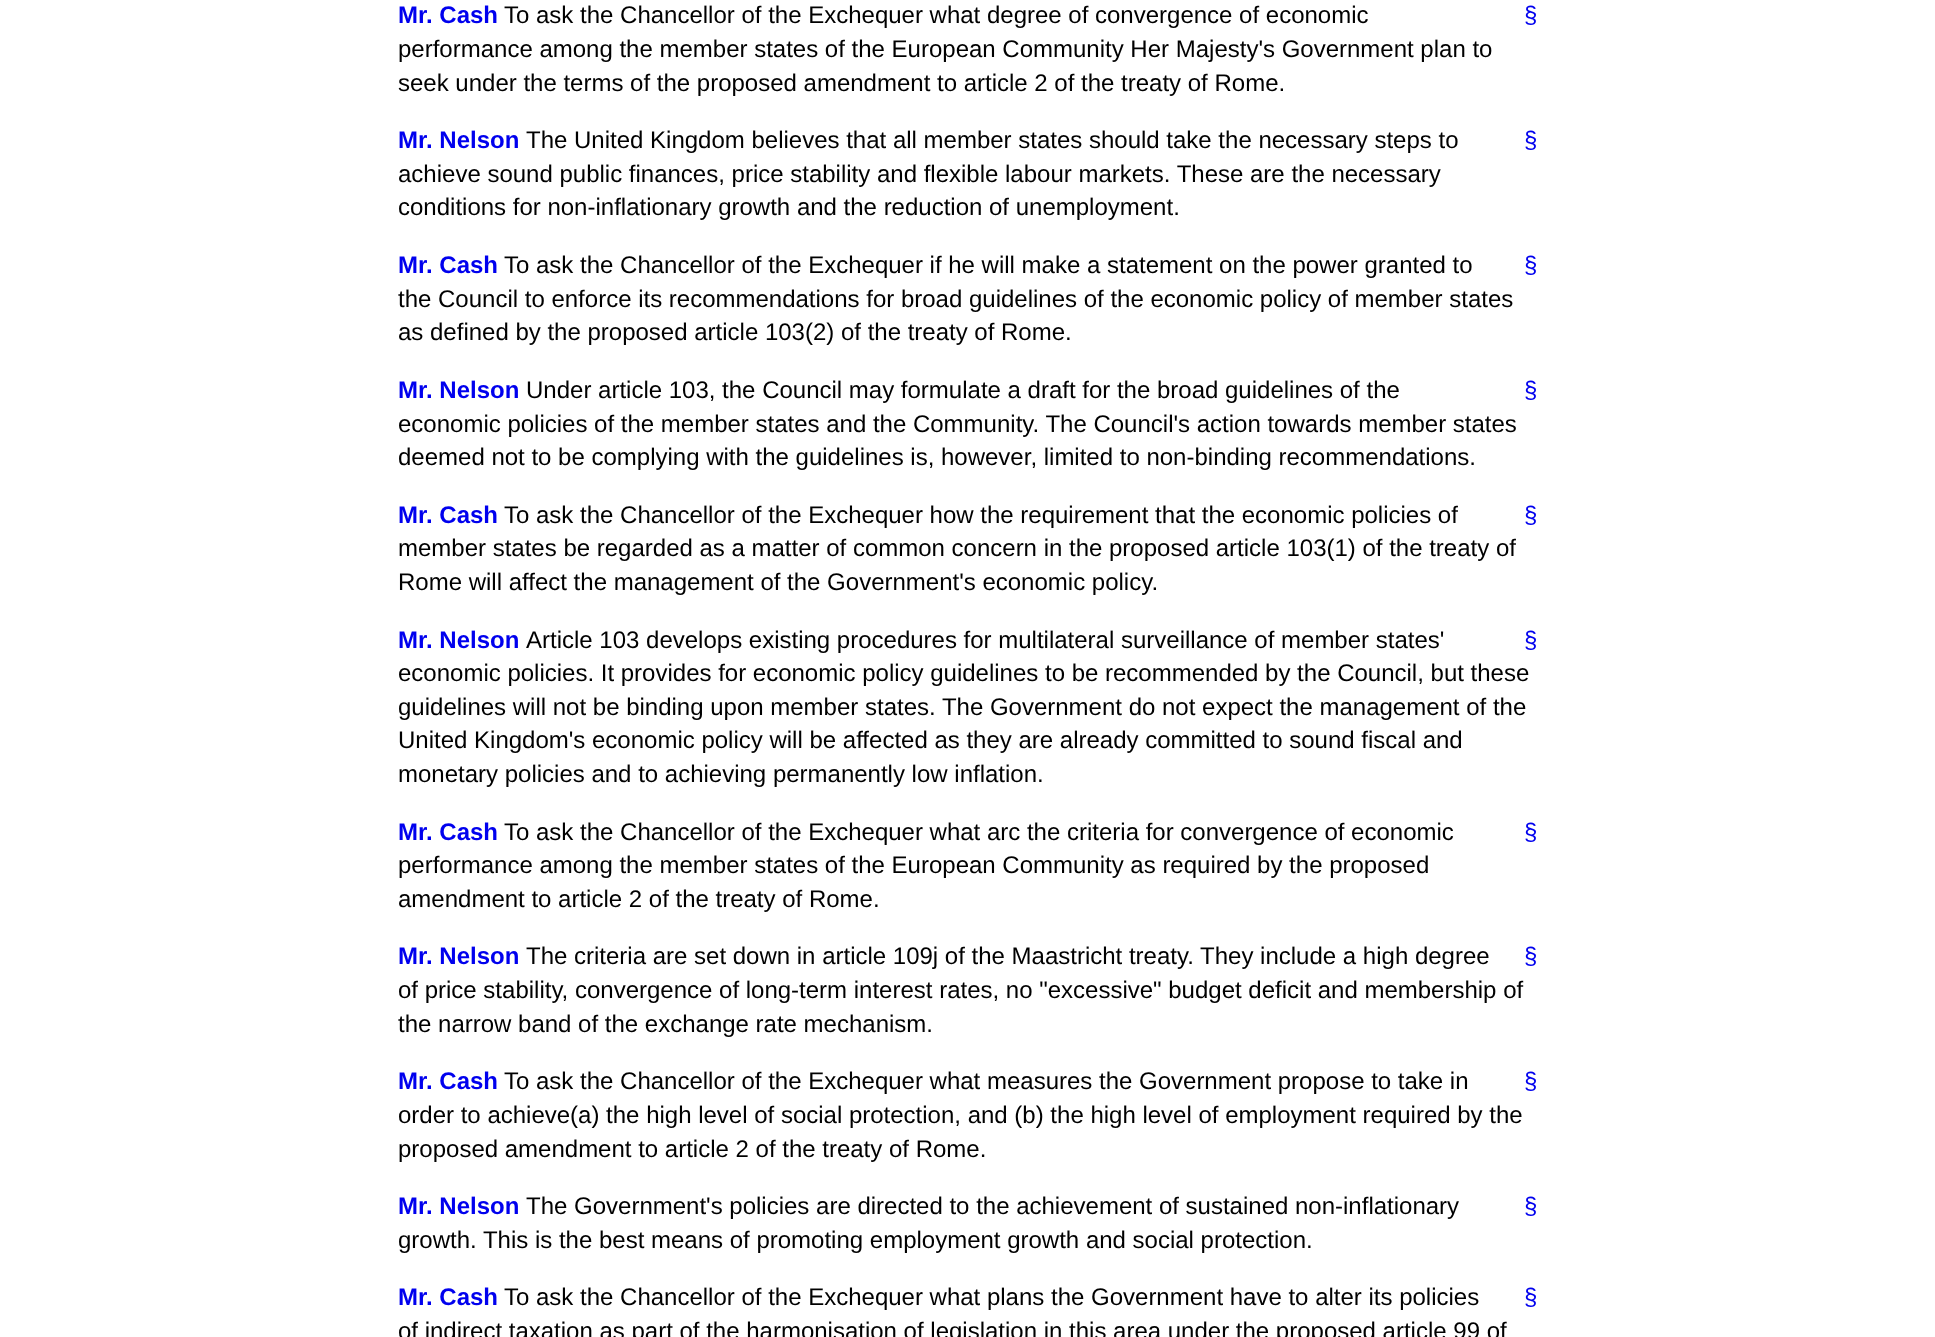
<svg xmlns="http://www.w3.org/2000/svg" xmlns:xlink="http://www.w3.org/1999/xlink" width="1935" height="1337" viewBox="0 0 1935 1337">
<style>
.cls-1{font:bold 24px Liberation Sans;fill:#0000ee}
.cls-2{font:24px Liberation Sans;fill:#000000}
.cls-3{font:24px Liberation Sans;fill:#0000ee}
</style>
<rect width="100%" height="100%" fill="#ffffff"/>
<text class="cls-1" x="398" y="23">Mr. Cash</text>
<text class="cls-2" x="504" y="23">To ask the Chancellor of the Exchequer what degree of convergence of economic</text>
<text class="cls-3" x="1524" y="23">§</text>
<text class="cls-2"><tspan x="398" y="57">performance among the member states of the European Community Her Majesty's Government plan to</tspan><tspan x="398" y="91">seek under the terms of the proposed amendment to article 2 of the treaty of Rome.</tspan></text>
<text class="cls-1" x="398" y="148">Mr. Nelson</text>
<text class="cls-2" x="526" y="148">The United Kingdom believes that all member states should take the necessary steps to</text>
<text class="cls-3" x="1524" y="148">§</text>
<text class="cls-2"><tspan x="398" y="182">achieve sound public finances, price stability and flexible labour markets. These are the necessary</tspan><tspan x="398" y="215">conditions for non-inflationary growth and the reduction of unemployment.</tspan></text>
<text class="cls-1" x="398" y="273">Mr. Cash</text>
<text class="cls-2" x="504" y="273">To ask the Chancellor of the Exchequer if he will make a statement on the power granted to</text>
<text class="cls-3" x="1524" y="273">§</text>
<text class="cls-2"><tspan x="398" y="307">the Council to enforce its recommendations for broad guidelines of the economic policy of member states</tspan><tspan x="398" y="340">as defined by the proposed article 103(2) of the treaty of Rome.</tspan></text>
<text class="cls-1" x="398" y="398">Mr. Nelson</text>
<text class="cls-2" x="526" y="398">Under article 103, the Council may formulate a draft for the broad guidelines of the</text>
<text class="cls-3" x="1524" y="398">§</text>
<text class="cls-2"><tspan x="398" y="432">economic policies of the member states and the Community. The Council's action towards member states</tspan><tspan x="398" y="465">deemed not to be complying with the guidelines is, however, limited to non-binding recommendations.</tspan></text>
<text class="cls-1" x="398" y="523">Mr. Cash</text>
<text class="cls-2" x="504" y="523">To ask the Chancellor of the Exchequer how the requirement that the economic policies of</text>
<text class="cls-3" x="1524" y="523">§</text>
<text class="cls-2"><tspan x="398" y="556">member states be regarded as a matter of common concern in the proposed article 103(1) of the treaty of</tspan><tspan x="398" y="590">Rome will affect the management of the Government's economic policy.</tspan></text>
<text class="cls-1" x="398" y="648">Mr. Nelson</text>
<text class="cls-2" x="526" y="648">Article 103 develops existing procedures for multilateral surveillance of member states'</text>
<text class="cls-3" x="1524" y="648">§</text>
<text class="cls-2"><tspan x="398" y="681">economic policies. It provides for economic policy guidelines to be recommended by the Council, but these</tspan><tspan x="398" y="715">guidelines will not be binding upon member states. The Government do not expect the management of the</tspan><tspan x="398" y="748">United Kingdom's economic policy will be affected as they are already committed to sound fiscal and</tspan><tspan x="398" y="782">monetary policies and to achieving permanently low inflation.</tspan></text>
<text class="cls-1" x="398" y="840">Mr. Cash</text>
<text class="cls-2" x="504" y="840">To ask the Chancellor of the Exchequer what arc the criteria for convergence of economic</text>
<text class="cls-3" x="1524" y="840">§</text>
<text class="cls-2"><tspan x="398" y="873">performance among the member states of the European Community as required by the proposed</tspan><tspan x="398" y="907">amendment to article 2 of the treaty of Rome.</tspan></text>
<text class="cls-1" x="398" y="964">Mr. Nelson</text>
<text class="cls-2" x="526" y="964">The criteria are set down in article 109j of the Maastricht treaty. They include a high degree</text>
<text class="cls-3" x="1524" y="964">§</text>
<text class="cls-2"><tspan x="398" y="998">of price stability, convergence of long-term interest rates, no "excessive" budget deficit and membership of</tspan><tspan x="398" y="1032">the narrow band of the exchange rate mechanism.</tspan></text>
<text class="cls-1" x="398" y="1089">Mr. Cash</text>
<text class="cls-2" x="504" y="1089">To ask the Chancellor of the Exchequer what measures the Government propose to take in</text>
<text class="cls-3" x="1524" y="1089">§</text>
<text class="cls-2"><tspan x="398" y="1123">order to achieve(a) the high level of social protection, and (b) the high level of employment required by the</tspan><tspan x="398" y="1157">proposed amendment to article 2 of the treaty of Rome.</tspan></text>
<text class="cls-1" x="398" y="1214">Mr. Nelson</text>
<text class="cls-2" x="526" y="1214">The Government's policies are directed to the achievement of sustained non-inflationary</text>
<text class="cls-3" x="1524" y="1214">§</text>
<text class="cls-2" x="398" y="1248">growth. This is the best means of promoting employment growth and social protection.</text>
<text class="cls-1" x="398" y="1305">Mr. Cash</text>
<text class="cls-2" x="504" y="1305">To ask the Chancellor of the Exchequer what plans the Government have to alter its policies</text>
<text class="cls-3" x="1524" y="1305">§</text>
<text class="cls-2" x="398" y="1339">of indirect taxation as part of the harmonisation of legislation in this area under the proposed article 99 of</text>
</svg>
